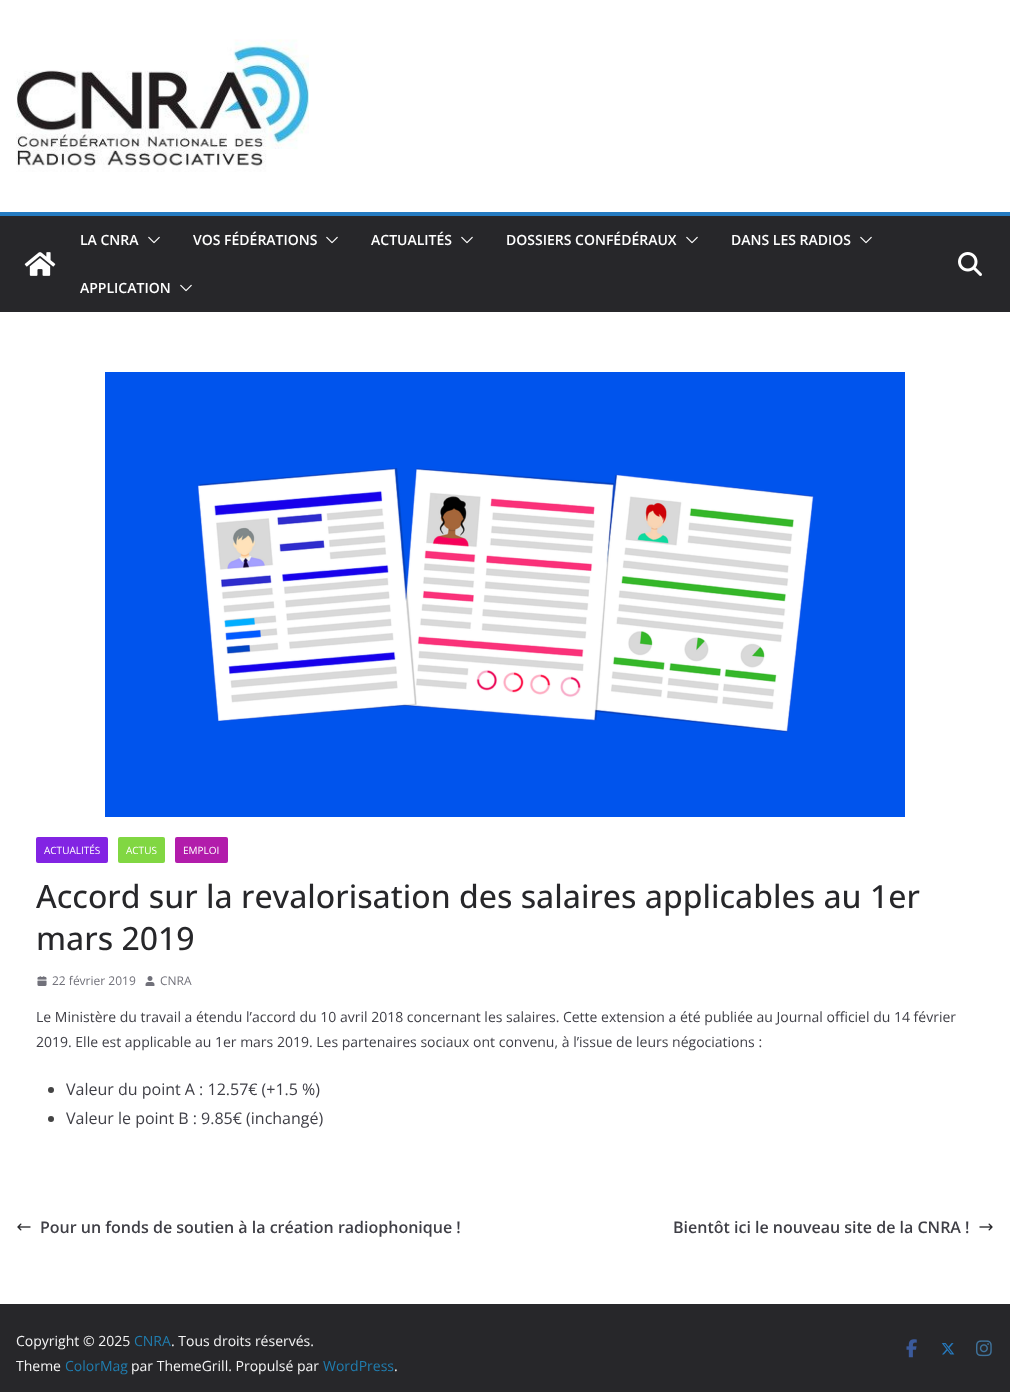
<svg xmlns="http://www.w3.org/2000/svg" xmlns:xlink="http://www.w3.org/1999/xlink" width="1010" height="1392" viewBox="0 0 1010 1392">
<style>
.cls-1{font:600 14px Open Sans;fill:#ffffff}
.cls-2{font:10px Open Sans;fill:#ffffff}
.cls-3{font:500 32px Open Sans;fill:#27272a}
.cls-4{font:12px Open Sans;fill:#71717a}
.cls-5{font:14px Open Sans;fill:#3f3f46}
.cls-6{font:16px Open Sans;fill:#3f3f46}
.cls-7{font:600 16px Open Sans;fill:#3f3f46}
.cls-8{font:14px Open Sans;fill:#f4f4f5}
.cls-9{font:14px Open Sans;fill:#207daf}
</style>
<rect width="100%" height="100%" fill="#ffffff"/>
<image xlink:href="image0.png" x="16" y="39" width="293" height="133"/>
<rect fill="#27272a" x="0" y="216" width="1010" height="96"/>
<rect fill="#257bc1" x="0" y="212" width="1010" height="4"/>
<image xlink:href="image1.png" x="24" y="252" width="32" height="24"/>
<image xlink:href="image2.png" x="148" y="236" width="12" height="8"/>
<image xlink:href="image2.png" x="326" y="236" width="12" height="8"/>
<image xlink:href="image2.png" x="461" y="236" width="12" height="8"/>
<image xlink:href="image2.png" x="686" y="236" width="12" height="8"/>
<image xlink:href="image2.png" x="860" y="236" width="12" height="8"/>
<image xlink:href="image2.png" x="180" y="284" width="12" height="8"/>
<image xlink:href="image3.png" x="958" y="252" width="24" height="24"/>
<image xlink:href="image4.png" x="105" y="372" width="800" height="445"/>
<rect fill="#8224e3" x="36" y="837" width="72" height="26" rx="2"/>
<rect fill="#81d742" x="118" y="837" width="47" height="26" rx="2"/>
<rect fill="#b21cab" x="175" y="837" width="53" height="26" rx="2"/>
<image xlink:href="image5.png" x="37" y="976" width="10" height="10"/>
<image xlink:href="image6.png" x="145" y="976" width="10" height="10"/>
<circle fill="#444444" cx="51" cy="1090" r="3"/>
<circle fill="#444444" cx="51" cy="1119" r="3"/>
<image xlink:href="image7.png" x="17" y="1223" width="14" height="8"/>
<image xlink:href="image8.png" x="979" y="1223" width="14" height="8"/>
<rect fill="#27272a" x="0" y="1304" width="1010" height="88"/>
<image xlink:href="image9.png" x="906" y="1339" width="11" height="19"/>
<image xlink:href="image10.png" x="941" y="1343" width="14" height="12"/>
<image xlink:href="image11.png" x="976" y="1340" width="16" height="17"/>
<text class="cls-1" x="80" y="245">LA CNRA</text>
<text class="cls-1" x="193" y="245">VOS FÉDÉRATIONS</text>
<text class="cls-1" x="371" y="245">ACTUALITÉS</text>
<text class="cls-1" x="506" y="245">DOSSIERS CONFÉDÉRAUX</text>
<text class="cls-1" x="731" y="245">DANS LES RADIOS</text>
<text class="cls-1" x="80" y="293">APPLICATION</text>
<text class="cls-2" x="44" y="854">ACTUALITÉS</text>
<text class="cls-2" x="126" y="854">ACTUS</text>
<text class="cls-2" x="183" y="854">EMPLOI</text>
<text class="cls-3"><tspan x="36" y="908">Accord sur la revalorisation des salaires applicables au 1er</tspan><tspan x="36" y="950">mars 2019</tspan></text>
<text class="cls-4" x="52" y="985">22 février 2019</text>
<text class="cls-4" x="160" y="985">CNRA</text>
<text class="cls-5"><tspan x="36" y="1022">Le Ministère du travail a étendu l’accord du 10 avril 2018 concernant les salaires. Cette extension a été publiée au Journal officiel du 14 février</tspan><tspan x="36" y="1047">2019. Elle est applicable au 1er mars 2019. Les partenaires sociaux ont convenu, à l’issue de leurs négociations :</tspan></text>
<text class="cls-6"><tspan x="66" y="1095">Valeur du point A : 12.57€ (+1.5 %)</tspan><tspan x="66" y="1124">Valeur le point B : 9.85€ (inchangé)</tspan></text>
<text class="cls-7" x="40" y="1233">Pour un fonds de soutien à la création radiophonique !</text>
<text class="cls-7" x="673" y="1233">Bientôt ici le nouveau site de la CNRA !</text>
<text class="cls-8" x="16" y="1346">Copyright © 2025</text>
<text class="cls-9" x="134" y="1346">CNRA</text>
<text class="cls-8" x="171" y="1346">. Tous droits réservés.</text>
<text class="cls-8" x="16" y="1371">Theme</text>
<text class="cls-9" x="65" y="1371">ColorMag</text>
<text class="cls-8" x="131" y="1371">par ThemeGrill. Propulsé par</text>
<text class="cls-9" x="323" y="1371">WordPress</text>
<text class="cls-8" x="394" y="1371">.</text>
</svg>
